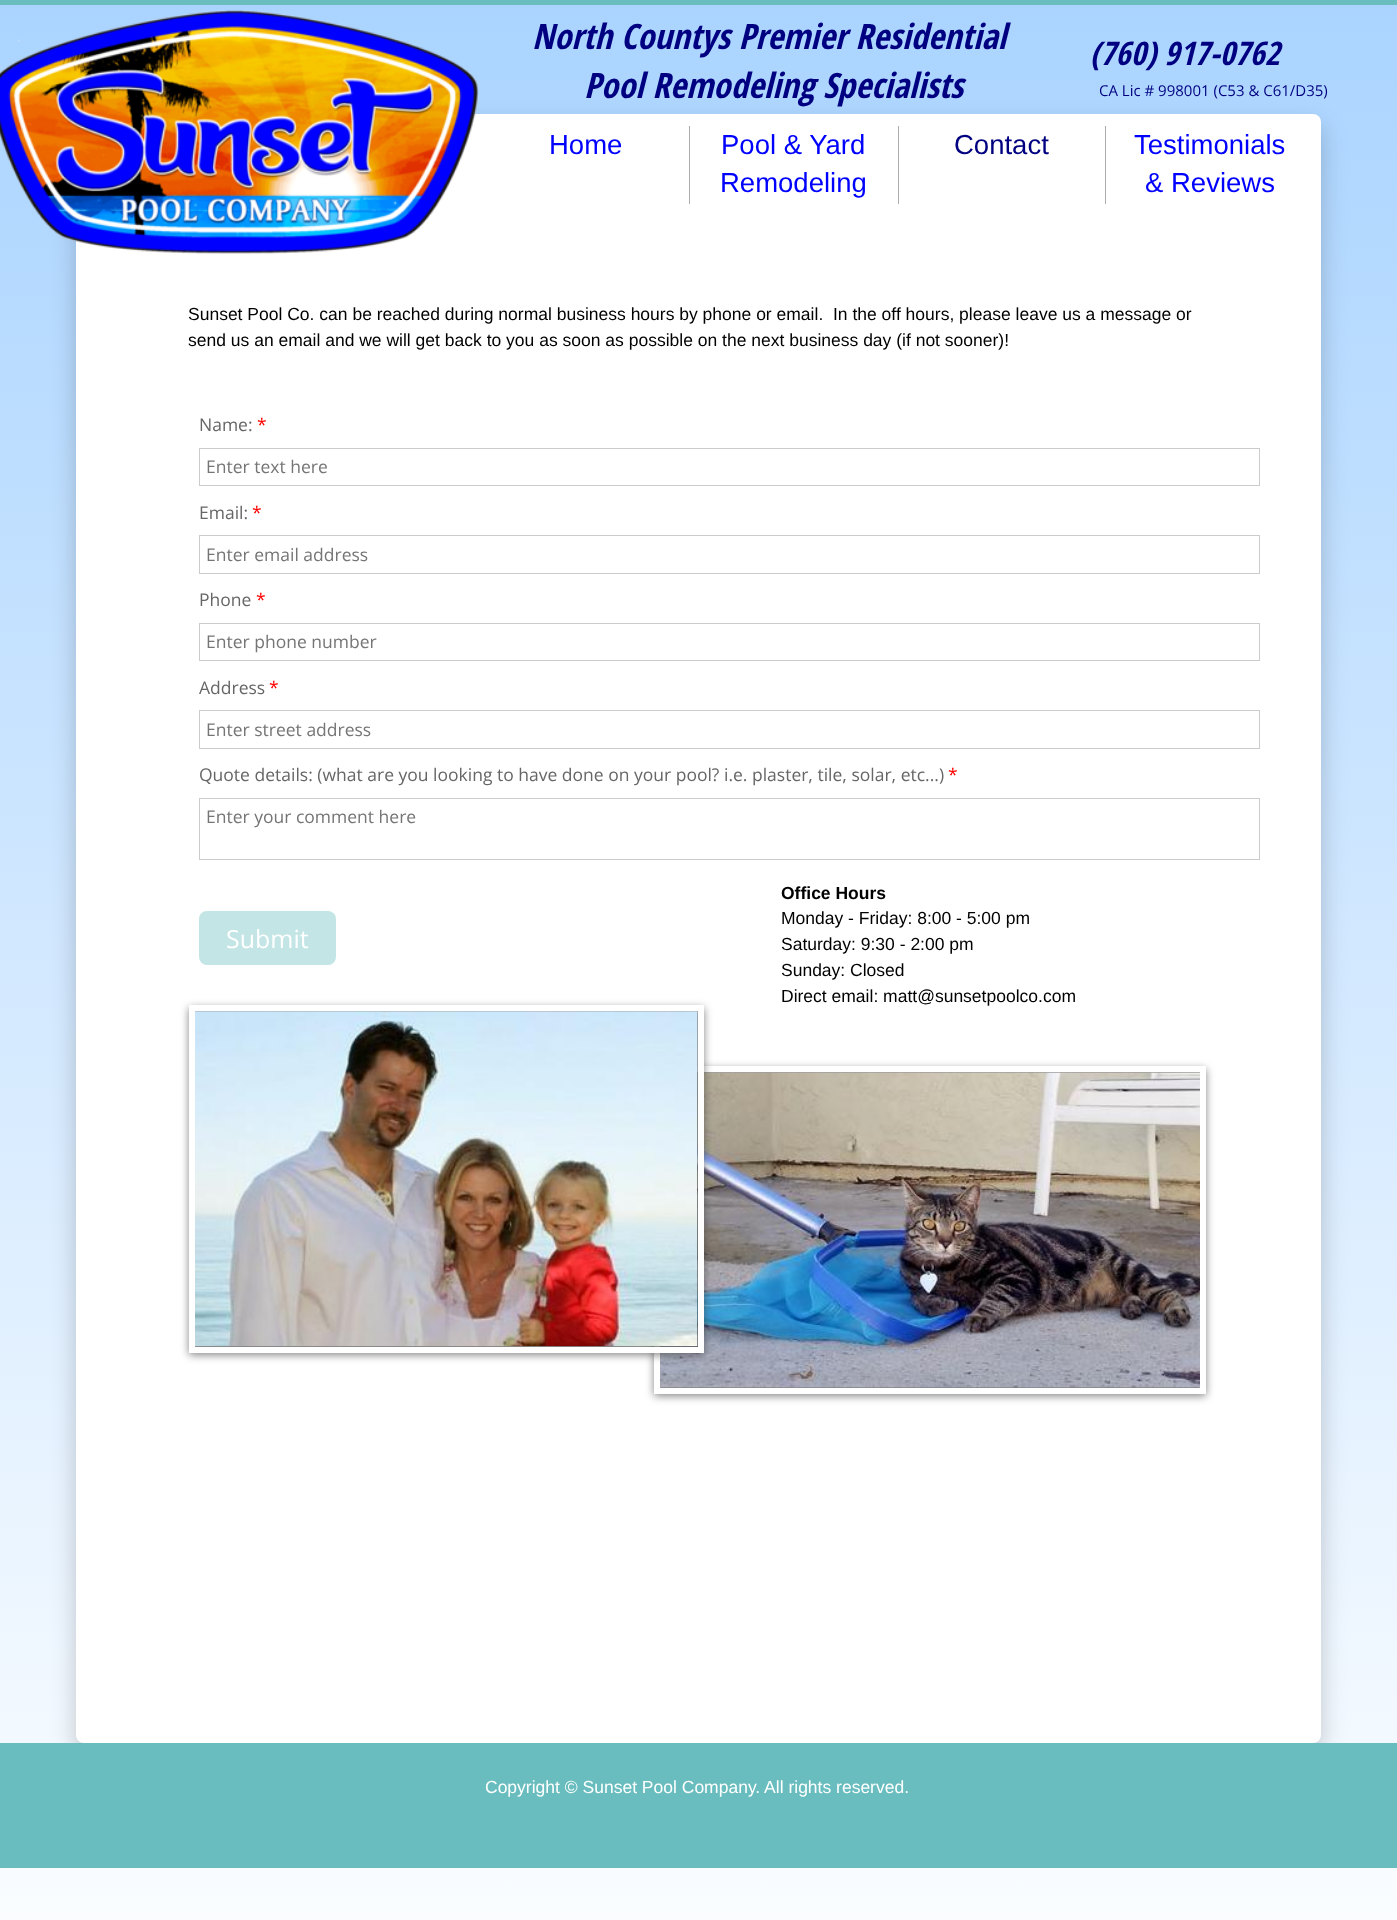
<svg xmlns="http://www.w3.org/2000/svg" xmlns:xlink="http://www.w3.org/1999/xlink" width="1397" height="1920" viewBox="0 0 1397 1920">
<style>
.cls-1{font:italic bold 35px Open Sans Condensed;fill:#000080}
.cls-2{font:italic bold 32.5px Open Sans Condensed;fill:#000080}
.cls-3{font:15px Open Sans;fill:#000080}
.cls-4{font:27.5px Liberation Sans;fill:#0000ff}
.cls-5{font:27.5px Liberation Sans;fill:#000080}
.cls-6{font:17.5px Liberation Sans;fill:#000000}
.cls-7{font:17.5px Open Sans;fill:#666666}
.cls-8{font:17.5px Open Sans;fill:#ff0000}
.cls-9{font:17.5px Open Sans;fill:#757575}
.cls-10{font:25px Open Sans;fill:#ffffff}
.cls-11{font:bold 17.5px Liberation Sans;fill:#000000}
.cls-12{font:17.5px Liberation Sans;fill:#ffffff}
</style>
<defs>
<linearGradient id="g1" gradientUnits="userSpaceOnUse" x1="750" y1="5" x2="750" y2="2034"><stop offset="0" stop-color="#aad4ff"/><stop offset="1" stop-color="#ffffff"/></linearGradient>
</defs>
<rect width="100%" height="100%" fill="#69bdbe"/>
<rect fill="url(#g1)" x="0" y="5" width="1397" height="1915"/>
<rect fill="#000000" fill-opacity="0.2" filter="blur(12.5px)" x="76" y="126" width="1245" height="1629" rx="8"/>
<rect fill="#ffffff" x="76" y="114" width="1245" height="1629" rx="8"/>
<image xlink:href="image0.png" x="0" y="10" width="479" height="244"/>
<rect fill="#aeaeae" x="689" y="126" width="1" height="78"/>
<rect fill="#aeaeae" x="898" y="126" width="1" height="78"/>
<rect fill="#aeaeae" x="1105" y="126" width="1" height="78"/>
<rect fill="none" stroke="#cccccc" x="199.5" y="448.5" width="1060" height="37"/>
<rect fill="none" stroke="#cccccc" x="199.5" y="535.5" width="1060" height="38"/>
<rect fill="none" stroke="#cccccc" x="199.5" y="623.5" width="1060" height="37"/>
<rect fill="none" stroke="#cccccc" x="199.5" y="710.5" width="1060" height="38"/>
<rect fill="none" stroke="#cccccc" x="199.5" y="798.5" width="1060" height="61"/>
<rect fill="#c3e5e5" x="199" y="911" width="137" height="54" rx="8"/>
<rect fill="#323232" fill-opacity="0.6" filter="blur(4.5px)" x="654" y="1069" width="552" height="327"/>
<rect fill="none" stroke="#ffffff" stroke-width="6" x="657" y="1069" width="546" height="322"/>
<image xlink:href="image2.png" x="660" y="1072" width="540" height="316"/>
<rect fill="#323232" fill-opacity="0.6" filter="blur(4.5px)" x="189" y="1008" width="515" height="347"/>
<rect fill="none" stroke="#ffffff" stroke-width="6" x="192" y="1008" width="509" height="342"/>
<image xlink:href="image1.png" x="195" y="1011" width="503" height="336"/>
<rect fill="#69bdbe" x="0" y="1743" width="1397" height="125"/>
<text class="cls-1" x="532" y="49">North Countys Premier Residential</text>
<text class="cls-1" x="584" y="98">Pool Remodeling Specialists</text>
<text class="cls-2" x="1090" y="65">(760) 917-0762</text>
<text class="cls-3" x="1099" y="96">CA Lic # 998001 (C53 &amp; C61/D35)</text>
<text class="cls-4" x="549" y="154">Home</text>
<text class="cls-4" x="721" y="154">Pool &amp; Yard</text>
<text class="cls-4" x="720" y="192">Remodeling</text>
<text class="cls-5" x="954" y="154">Contact</text>
<text class="cls-4" x="1134" y="154">Testimonials</text>
<text class="cls-4" x="1145" y="192">&amp; Reviews</text>
<text class="cls-6" xml:space="preserve"><tspan x="188" y="320">Sunset Pool Co. can be reached during normal business hours by phone or email.  In the off hours, please leave us a message or</tspan><tspan x="188" y="346">send us an email and we will get back to you as soon as possible on the next business day (if not sooner)!</tspan></text>
<text class="cls-7" x="199" y="431">Name:</text>
<text class="cls-8" x="257" y="431">*</text>
<text class="cls-9" x="206" y="473">Enter text here</text>
<text class="cls-7" x="199" y="519">Email:</text>
<text class="cls-8" x="252" y="519">*</text>
<text class="cls-9" x="206" y="561">Enter email address</text>
<text class="cls-7" x="199" y="606">Phone</text>
<text class="cls-8" x="256" y="606">*</text>
<text class="cls-9" x="206" y="648">Enter phone number</text>
<text class="cls-7" x="199" y="694">Address</text>
<text class="cls-8" x="269" y="694">*</text>
<text class="cls-9" x="206" y="736">Enter street address</text>
<text class="cls-7" x="199" y="781">Quote details: (what are you looking to have done on your pool? i.e. plaster, tile, solar, etc...)</text>
<text class="cls-8" x="948" y="781">*</text>
<text class="cls-9" x="206" y="823">Enter your comment here</text>
<text class="cls-10" x="226" y="948">Submit</text>
<text class="cls-11" x="781" y="899">Office Hours</text>
<text class="cls-6"><tspan x="781" y="924">Monday - Friday: 8:00 - 5:00 pm</tspan><tspan x="781" y="950">Saturday: 9:30 - 2:00 pm</tspan><tspan x="781" y="976">Sunday: Closed</tspan><tspan x="781" y="1002">Direct email: matt@sunsetpoolco.com</tspan></text>
<text class="cls-12" x="485" y="1793">Copyright © Sunset Pool Company. All rights reserved.</text>
</svg>
